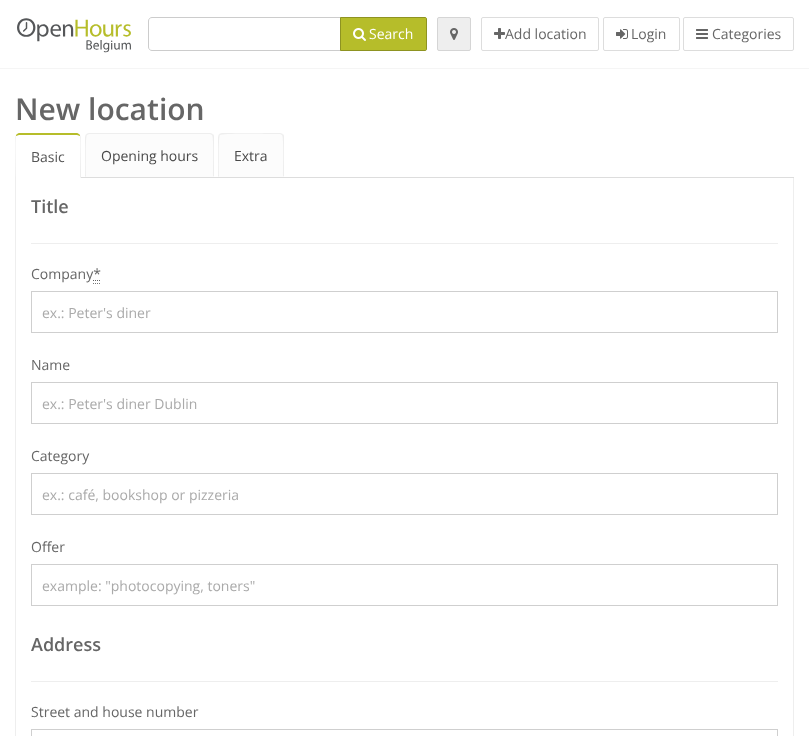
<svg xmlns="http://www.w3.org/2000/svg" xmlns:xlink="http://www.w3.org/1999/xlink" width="809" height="736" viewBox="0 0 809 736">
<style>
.cls-1{font:14px Open Sans;fill:#ffffff}
.cls-2{font:14px Open Sans;fill:#666666}
.cls-3{font:600 30px Open Sans;fill:#666666}
.cls-4{font:14px Open Sans;fill:#555555}
.cls-5{font:14px Open Sans;fill:#494949}
.cls-6{font:600 18px Open Sans;fill:#666666}
.cls-7{font:14px Open Sans;fill:#aaaaaa}
</style>
<rect width="100%" height="100%" fill="#ffffff"/>
<rect fill="#f5f5f5" x="0" y="68" width="809" height="1"/>
<image xlink:href="image0.png" x="17" y="18" width="114" height="35"/>
<path fill="none" stroke="#cccccc" d="M152 17.5H340.5V50.5H152C150 50.5 148.5 49 148.5 47V21C148.5 19 150 17.5 152 17.5Z"/>
<path fill="#b6bd2a" stroke="#8e9321" d="M340.5 17.5H425C426 17.5 426.5 18 426.5 19V49C426.5 50 426 50.5 425 50.5H340.5Z"/>
<image xlink:href="image1.png" x="353" y="28" width="13" height="13"/>
<rect fill="#eeeeee" stroke="#d5d5d5" x="437.5" y="17.5" width="33" height="33" rx="1.5"/>
<image xlink:href="image2.png" x="450" y="28" width="8" height="12"/>
<rect fill="none" stroke="#dddddd" x="481.5" y="17.5" width="117" height="33" rx="1.5"/>
<image xlink:href="image3.png" x="494" y="28" width="11" height="11"/>
<rect fill="none" stroke="#dddddd" x="603.5" y="17.5" width="76" height="33" rx="1.5"/>
<image xlink:href="image4.png" x="616" y="29" width="12" height="10"/>
<rect fill="none" stroke="#dddddd" x="683.5" y="17.5" width="110" height="33" rx="1.5"/>
<image xlink:href="image5.png" x="696" y="29" width="12" height="10"/>
<rect fill="#dddddd" x="15" y="177" width="779" height="1"/>
<path fill="#b6bd2a" d="M19 133C18 133 17 134 16 135V136L19 135H77L80 136V135C79 134 78 133 77 133Z"/>
<path fill="#eeeeee" d="M81 178V137L80 135V136C81 137 80 172 80 177Z"/>
<path fill="#ffffff" d="M81 178L80 177H16L15 178Z"/>
<path fill="#eeeeee" d="M15 178L16 177C16 172 15 137 16 136V135L15 137Z"/>
<path fill="#fcfcfc" d="M89 133H210C212 133 214 135 214 137V177H85V137C85 135 87 133 89 133Z"/>
<path fill="#eeeeee" d="M89 133L86 134L87 135L89 134H210L212 135L213 134L210 133Z"/>
<path fill="#eeeeee" d="M214 177V137C214 136 214 135 213 134L212 135C214 137 213 171 213 176Z"/>
<path fill="#fcfcfc" d="M214 177L213 176H86L85 177Z"/>
<path fill="#eeeeee" d="M85 177L86 176C86 171 85 137 87 135L86 134L85 137Z"/>
<path fill="#fcfcfc" d="M222 133H280C282 133 284 135 284 137V177H218V137C218 135 220 133 222 133Z"/>
<path fill="#eeeeee" d="M222 133L219 134L220 135C222 133 265 134 270 134H280L282 135L283 134L280 133Z"/>
<path fill="#eeeeee" d="M284 177V137C284 136 284 135 283 134L282 135C284 137 283 171 283 176Z"/>
<path fill="#fcfcfc" d="M284 177L283 176H219L218 177Z"/>
<path fill="#eeeeee" d="M218 177L219 176C219 171 218 137 220 135L219 134L218 137Z"/>
<path fill="#eeeeee" fill-rule="evenodd" d="M15 178H794V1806C794 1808 793 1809 791 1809H18C16 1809 15 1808 15 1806ZM16 178H793V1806C793 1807 792 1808 791 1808H18C17 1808 16 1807 16 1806Z"/>
<rect fill="#eeeeee" x="31" y="243" width="747" height="1"/>
<path fill="none" stroke="#777777" stroke-dasharray="1 1" d="M93 283.5H101"/>
<rect fill="none" stroke="#cfcfcf" x="31.5" y="291.5" width="746" height="41"/>
<rect fill="none" stroke="#cfcfcf" x="31.5" y="382.5" width="746" height="41"/>
<rect fill="none" stroke="#cfcfcf" x="31.5" y="473.5" width="746" height="41"/>
<rect fill="none" stroke="#cfcfcf" x="31.5" y="564.5" width="746" height="41"/>
<rect fill="#eeeeee" x="31" y="681" width="747" height="1"/>
<rect fill="none" stroke="#cfcfcf" x="31.5" y="729.5" width="746" height="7"/>
<text class="cls-1" x="369" y="39">Search</text>
<text class="cls-2" x="505" y="39">Add location</text>
<text class="cls-2" x="631" y="39">Login</text>
<text class="cls-2" x="712" y="39">Categories</text>
<text class="cls-3" x="15" y="120">New location</text>
<text class="cls-4" x="31" y="162">Basic</text>
<text class="cls-5" x="101" y="161">Opening hours</text>
<text class="cls-5" x="234" y="161">Extra</text>
<text class="cls-6" x="31" y="213">Title</text>
<text class="cls-2" x="31" y="279">Company*</text>
<path fill="none" stroke="#626262" stroke-dasharray="1 1" d="M93 280.5H101"/>
<text class="cls-7" x="42" y="318">ex.: Peter's diner</text>
<text class="cls-2" x="31" y="370">Name</text>
<text class="cls-7" x="42" y="409">ex.: Peter's diner Dublin</text>
<text class="cls-2" x="31" y="461">Category</text>
<text class="cls-7" x="42" y="500">ex.: café, bookshop or pizzeria</text>
<text class="cls-2" x="31" y="552">Offer</text>
<text class="cls-7" x="42" y="591">example: "photocopying, toners"</text>
<text class="cls-6" x="31" y="651">Address</text>
<text class="cls-2" x="31" y="717">Street and house number</text>
</svg>
